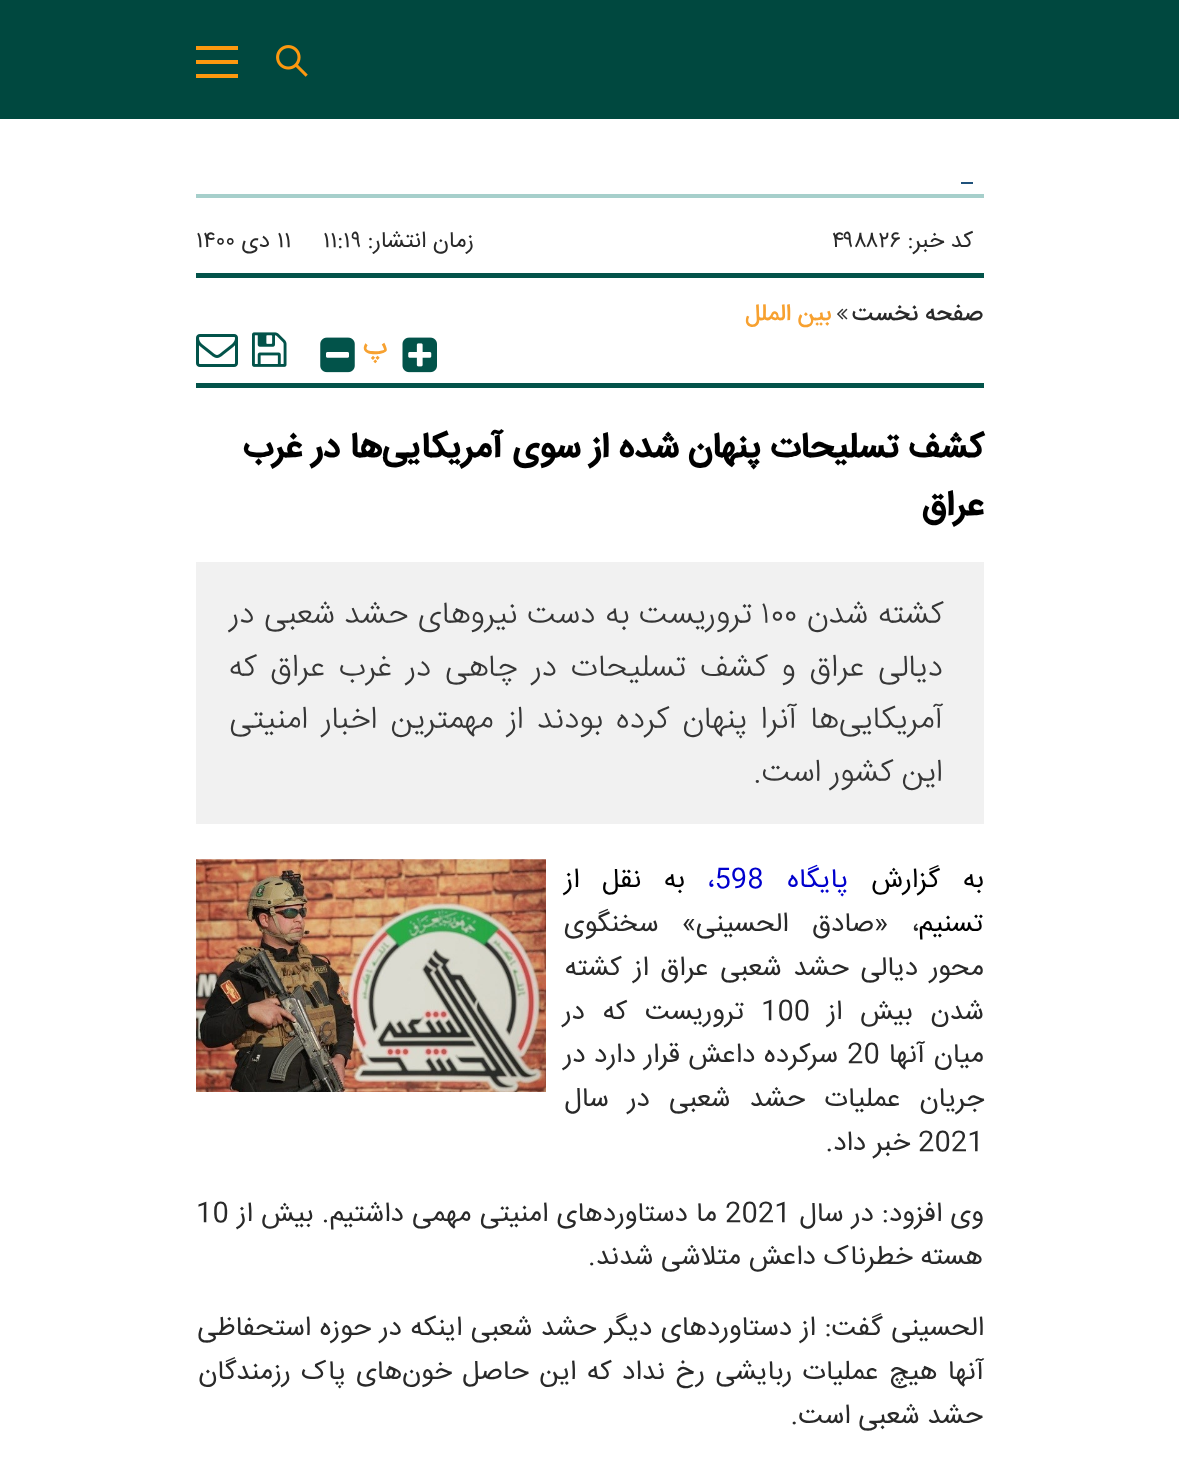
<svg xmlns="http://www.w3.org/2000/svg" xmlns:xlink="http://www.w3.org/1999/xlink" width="1179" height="1463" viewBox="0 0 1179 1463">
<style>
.cls-1{font:22.75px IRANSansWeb;direction:rtl;fill:#292929}
.cls-2{font:22.75px IRANSansWeb;fill:#292929}
.cls-3{font:500 23.5px IRANSansWeb;direction:rtl;fill:#292929}
.cls-4{font:500 23.5px IRANSansWeb;direction:rtl;fill:#f7a130}
.cls-5{font:500 28px IRANSansWeb;direction:rtl;fill:#f7a130}
.cls-6{font:bold 35px IRANSansWeb;direction:rtl;fill:#000000}
.cls-7{font:300 31.5px IRANSansWeb;direction:rtl;fill:#363636}
.cls-8{font:300 31.5px IRANSansWeb;fill:#363636}
.cls-9{font:27.1px IRANSansWeb;direction:rtl;fill:#000000}
.cls-10{font:27.1px IRANSansWeb;direction:rtl;fill:#0000cd}
.cls-11{font:27.1px IRANSansWeb;fill:#0000cd}
.cls-12{font:27.1px IRANSansWeb;direction:rtl;fill:#292929}
.cls-13{font:27.1px IRANSansWeb;fill:#292929}
</style>
<rect width="100%" height="100%" fill="#ffffff"/>
<rect fill="#00483f" x="0" y="0" width="1179" height="119"/>
<image xlink:href="image0.png" x="276" y="45" width="32" height="32"/>
<rect fill="#fc980f" x="196" y="46" width="42" height="4"/>
<rect fill="#fc980f" x="196" y="60" width="42" height="4"/>
<rect fill="#fc980f" x="196" y="74" width="42" height="4"/>
<rect fill="#a6cfcb" x="196" y="194" width="788" height="4"/>
<rect fill="#1f527b" x="961" y="182" width="12" height="2"/>
<rect fill="#03534a" x="196" y="273" width="788" height="5"/>
<rect fill="#03534a" x="196" y="383" width="788" height="5"/>
<image xlink:href="image1.png" x="837" y="308" width="11" height="12"/>
<image xlink:href="image2.png" x="402" y="337" width="35" height="36"/>
<image xlink:href="image3.png" x="320" y="337" width="35" height="36"/>
<image xlink:href="image4.png" x="252" y="332" width="35" height="35"/>
<image xlink:href="image5.png" x="196" y="334" width="42" height="33"/>
<rect fill="#f1f1f1" x="196" y="562" width="788" height="262"/>
<image xlink:href="image6.png" x="196" y="859" width="350" height="233"/>
<text class="cls-1" x="973" y="247">کد خبر:</text>
<text class="cls-2" x="832" y="247">۴۹۸۸۲۶</text>
<text class="cls-1" x="474" y="247">زمان انتشار:</text>
<text class="cls-2" x="323" y="247">۱۱:۱۹</text>
<text class="cls-2" x="277" y="247">۱۱</text>
<text class="cls-1" x="270" y="247">دی</text>
<text class="cls-2" x="196" y="247">۱۴۰۰</text>
<text class="cls-3" x="983" y="320">صفحه نخست</text>
<text class="cls-4" x="831" y="320">بین الملل</text>
<text class="cls-5" x="387" y="354">پ</text>
<text class="cls-6"><tspan x="983" y="457">کشف تسلیحات پنهان شده از سوی آمریکایی‌ها در غرب</tspan><tspan x="983" y="515">عراق</tspan></text>
<text class="cls-7" x="943" y="623" word-spacing="1">کشته شدن</text>
<text class="cls-8" x="761" y="623">۱۰۰</text>
<text class="cls-7" x="752" y="623" word-spacing="0.75">تروریست به دست نیروهای حشد شعبی در</text>
<text class="cls-7"><tspan x="943" y="676" word-spacing="5">دیالی عراق و کشف تسلیحات در چاهی در غرب عراق که</tspan><tspan x="943" y="728" word-spacing="4.5">آمریکایی‌ها آنرا پنهان کرده بودند از مهمترین اخبار امنیتی</tspan><tspan x="943" y="781">این کشور است.</tspan></text>
<text class="cls-9" x="984" y="887" word-spacing="15">به گزارش</text>
<text class="cls-10" x="848" y="887">پایگاه</text>
<text class="cls-11" x="707" y="887">،598</text>
<text class="cls-9" x="685" y="887" word-spacing="15">به نقل از</text>
<text class="cls-9" x="983" y="931">تسنیم</text>
<text class="cls-12" x="919" y="931" word-spacing="16">، «صادق الحسینی» سخنگوی</text>
<text class="cls-12"><tspan x="984" y="975" word-spacing="4">محور دیالی حشد شعبی عراق از کشته</tspan><tspan x="984" y="1019" word-spacing="10">شدن بیش از</tspan></text>
<text class="cls-13" x="761" y="1019">100</text>
<text class="cls-12" x="744" y="1019" word-spacing="10">تروریست که در</text>
<text class="cls-12" x="984" y="1062" word-spacing="1">میان آنها</text>
<text class="cls-13" x="847" y="1062">20</text>
<text class="cls-12" x="838" y="1062" word-spacing="1">سرکرده داعش قرار دارد در</text>
<text class="cls-12" x="984" y="1106" word-spacing="11.5">جریان عملیات حشد شعبی در سال</text>
<text class="cls-13" x="918" y="1150">2021</text>
<text class="cls-12" x="910" y="1150">خبر داد.</text>
<text class="cls-12" x="984" y="1221" word-spacing="0.5">وی افزود: در سال</text>
<text class="cls-13" x="725" y="1221">2021</text>
<text class="cls-12" x="717" y="1221" word-spacing="0.5">ما دستاوردهای امنیتی مهمی داشتیم. بیش از</text>
<text class="cls-13" x="196" y="1221">10</text>
<text class="cls-12" x="983" y="1264">هسته خطرناک داعش متلاشی شدند.</text>
<text class="cls-12"><tspan x="984" y="1335" word-spacing="0.9">الحسینی گفت: از دستاوردهای دیگر حشد شعبی اینکه در حوزه استحفاظی</tspan><tspan x="984" y="1379" word-spacing="2.75">آنها هیچ عملیات ربایشی رخ نداد که این حاصل خون‌های پاک رزمندگان</tspan></text>
<text class="cls-12" x="983" y="1423">حشد شعبی است.</text>
</svg>
